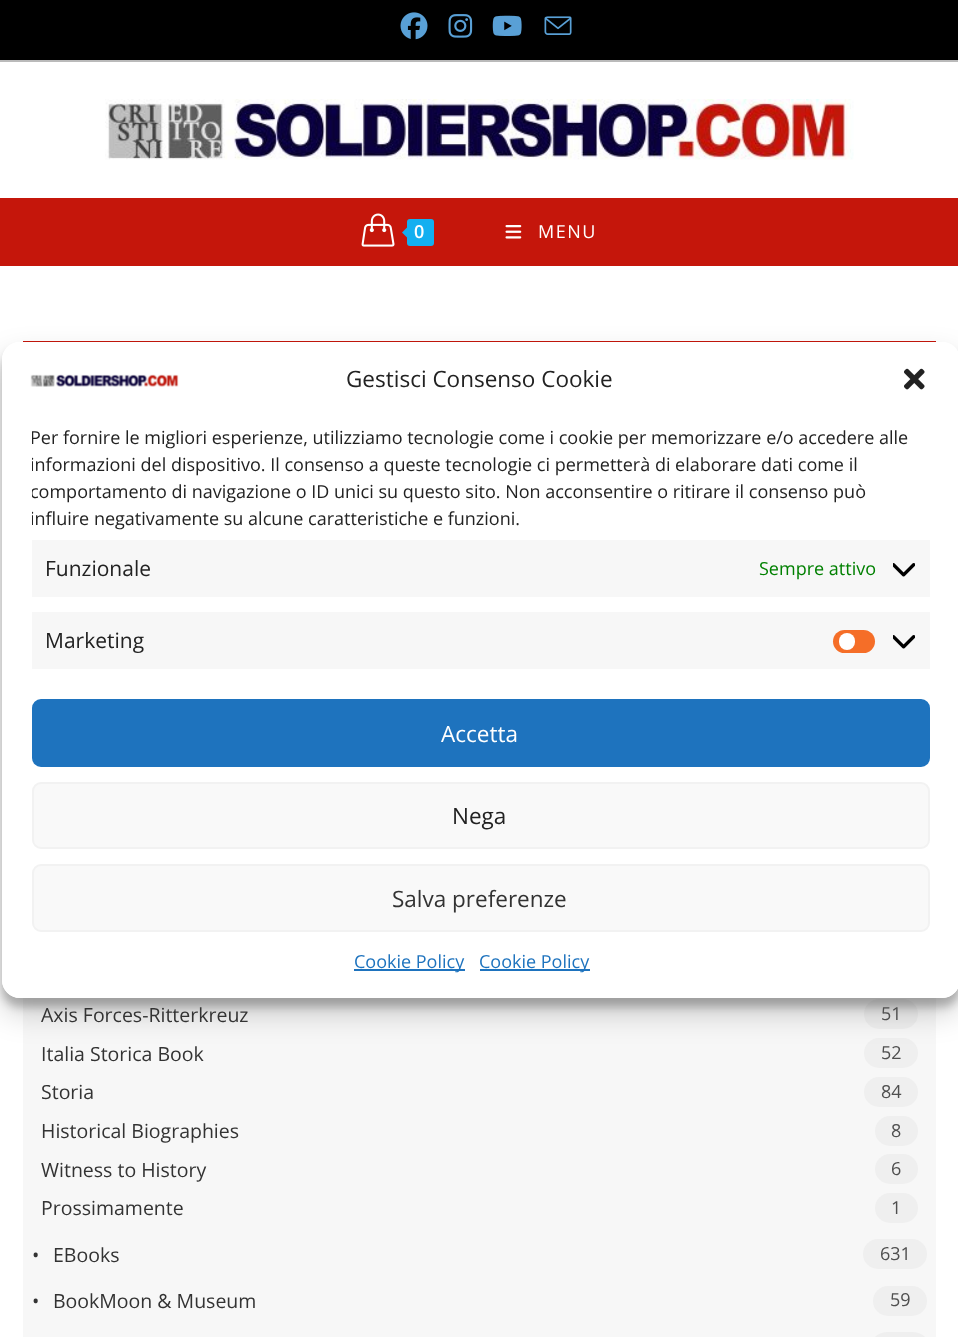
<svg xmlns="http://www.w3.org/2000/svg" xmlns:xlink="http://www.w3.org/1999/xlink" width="958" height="1337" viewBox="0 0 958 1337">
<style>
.cls-1{font:600 18px Open Sans;letter-spacing:1.5px;fill:#ffffff}
.cls-2{font:18px Open Sans;letter-spacing:1.5px;fill:#ffffff}
.cls-3{font:19.5px Open Sans;fill:#333333}
.cls-4{font:18px Open Sans;fill:#4f4f4f}
.cls-5{font:22.5px Open Sans;fill:#222222}
.cls-6{font:18px Open Sans;fill:#222222}
.cls-7{font:21px Open Sans;fill:#222222}
.cls-8{font:18px Open Sans;fill:#008000}
.cls-9{font:22.5px Open Sans;fill:#ffffff}
.cls-10{font:22.5px Open Sans;fill:#333333}
.cls-11{font:18px Open Sans;fill:#1e73be}
</style>
<defs>
<clipPath id="clip1"><path d="M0 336H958V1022H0ZM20 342H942C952 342 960 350 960 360V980C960 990 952 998 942 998H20C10 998 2 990 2 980V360C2 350 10 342 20 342Z" clip-rule="evenodd"/></clipPath>
<clipPath id="clip2"><path d="M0 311H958V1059H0ZM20 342H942C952 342 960 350 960 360V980C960 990 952 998 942 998H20C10 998 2 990 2 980V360C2 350 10 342 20 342Z" clip-rule="evenodd"/></clipPath>
<clipPath id="clip3"><rect x="32" y="425" width="898" height="244"/></clipPath>
</defs>
<rect width="100%" height="100%" fill="#ffffff"/>
<rect fill="#000000" x="0" y="0" width="958" height="60"/>
<rect fill="#bababa" x="0" y="60" width="958" height="2"/>
<image xlink:href="image0.png" x="400" y="12" width="28" height="28"/>
<image xlink:href="image1.png" x="448" y="14" width="25" height="24"/>
<image xlink:href="image2.png" x="492" y="15" width="30" height="21"/>
<image xlink:href="image3.png" x="544" y="16" width="28" height="19"/>
<image xlink:href="image4.png" x="105" y="99" width="749" height="61"/>
<rect fill="#c5160b" x="0" y="198" width="958" height="68"/>
<image xlink:href="image5.png" x="361" y="213" width="34" height="34"/>
<rect fill="#13aff0" x="407" y="219" width="27" height="27" rx="3"/>
<path fill="#13aff0" d="M409.5 225V240L402 232.5Z"/>
<image xlink:href="image6.png" x="505" y="225" width="17" height="14"/>
<rect fill="#f7f7f7" x="23" y="998" width="913" height="339"/>
<rect fill="#c5160b" x="23" y="341" width="913" height="1"/>
<rect fill="#efefef" x="864" y="999" width="54" height="30" rx="15"/>
<rect fill="#efefef" x="864" y="1038" width="54" height="30" rx="15"/>
<rect fill="#efefef" x="864" y="1077" width="54" height="30" rx="15"/>
<rect fill="#efefef" x="875" y="1116" width="43" height="30" rx="15"/>
<rect fill="#efefef" x="875" y="1154" width="43" height="30" rx="15"/>
<rect fill="#efefef" x="875" y="1193" width="43" height="30" rx="15"/>
<rect fill="#efefef" x="863" y="1239" width="64" height="30" rx="15"/>
<rect fill="#efefef" x="873" y="1286" width="54" height="30" rx="15"/>
<rect fill="#efefef" x="873" y="1332" width="54" height="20" rx="15"/>
<g clip-path="url(#clip1)">
<rect fill="#000000" fill-opacity="0.23" filter="blur(4.5px)" x="2" y="351" width="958" height="656" rx="18"/>
</g>
<g clip-path="url(#clip2)">
<rect fill="#000000" fill-opacity="0.19" filter="blur(15px)" x="2" y="357" width="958" height="656" rx="18"/>
</g>
<rect fill="#ffffff" x="2" y="342" width="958" height="656" rx="18"/>
<image xlink:href="image7.png" x="30" y="374" width="149" height="13"/>
<image xlink:href="image8.png" x="904" y="368" width="21" height="22"/>
<rect fill="#f7f7f7" x="32" y="540" width="898" height="57"/>
<image xlink:href="image9.png" x="893" y="563" width="22" height="14"/>
<rect fill="#f7f7f7" x="32" y="612" width="898" height="57"/>
<rect fill="#f56e28" x="833" y="630" width="42" height="23" rx="11.5"/>
<rect fill="#ffffff" x="839" y="633" width="16" height="17" rx="8"/>
<image xlink:href="image9.png" x="893" y="635" width="22" height="14"/>
<rect fill="#1e73be" stroke="#1e73be" stroke-width="2" x="33" y="700" width="896" height="66" rx="8"/>
<rect fill="#f9f9f9" stroke="#f2f2f2" stroke-width="2" x="33" y="783" width="896" height="65" rx="8"/>
<rect fill="#f9f9f9" stroke="#f2f2f2" stroke-width="2" x="33" y="865" width="896" height="66" rx="8"/>
<rect fill="#1e73be" x="354" y="969" width="111" height="2"/>
<rect fill="#1e73be" x="480" y="969" width="110" height="2"/>
<text class="cls-1" x="414" y="238">0</text>
<text class="cls-2" x="538" y="238">MENU</text>
<text class="cls-3" x="41" y="1022">Axis Forces-Ritterkreuz</text>
<text class="cls-4" x="881" y="1020">51</text>
<text class="cls-3" x="41" y="1061">Italia Storica Book</text>
<text class="cls-4" x="881" y="1059">52</text>
<text class="cls-3" x="41" y="1099">Storia</text>
<text class="cls-4" x="881" y="1098">84</text>
<text class="cls-3" x="41" y="1138">Historical Biographies</text>
<text class="cls-4" x="891" y="1137">8</text>
<text class="cls-3" x="41" y="1177">Witness to History</text>
<text class="cls-4" x="891" y="1175">6</text>
<text class="cls-3" x="41" y="1215">Prossimamente</text>
<text class="cls-4" x="891" y="1214">1</text>
<text class="cls-3" x="32" y="1262">•</text>
<text class="cls-3" x="53" y="1262">EBooks</text>
<text class="cls-4" x="880" y="1260">631</text>
<text class="cls-3" x="32" y="1308">•</text>
<text class="cls-3" x="53" y="1308">BookMoon &amp; Museum</text>
<text class="cls-4" x="890" y="1306">59</text>
<text class="cls-5" x="346" y="387">Gestisci Consenso Cookie</text>
<g clip-path="url(#clip3)">
<text class="cls-6"><tspan x="30" y="444">Per fornire le migliori esperienze, utilizziamo tecnologie come i cookie per memorizzare e/o accedere alle</tspan><tspan x="30" y="471">informazioni del dispositivo. Il consenso a queste tecnologie ci permetterà di elaborare dati come il</tspan><tspan x="30" y="498">comportamento di navigazione o ID unici su questo sito. Non acconsentire o ritirare il consenso può</tspan><tspan x="30" y="525">influire negativamente su alcune caratteristiche e funzioni.</tspan></text>
</g>
<text class="cls-7" x="45" y="576">Funzionale</text>
<text class="cls-8" x="759" y="575">Sempre attivo</text>
<text class="cls-7" x="45" y="648">Marketing</text>
<text class="cls-9" x="441" y="742">Accetta</text>
<text class="cls-5" x="452" y="824">Nega</text>
<text class="cls-10" x="392" y="907">Salva preferenze</text>
<text class="cls-11" x="354" y="968">Cookie Policy</text>
<text class="cls-11" x="479" y="968">Cookie Policy</text>
</svg>
